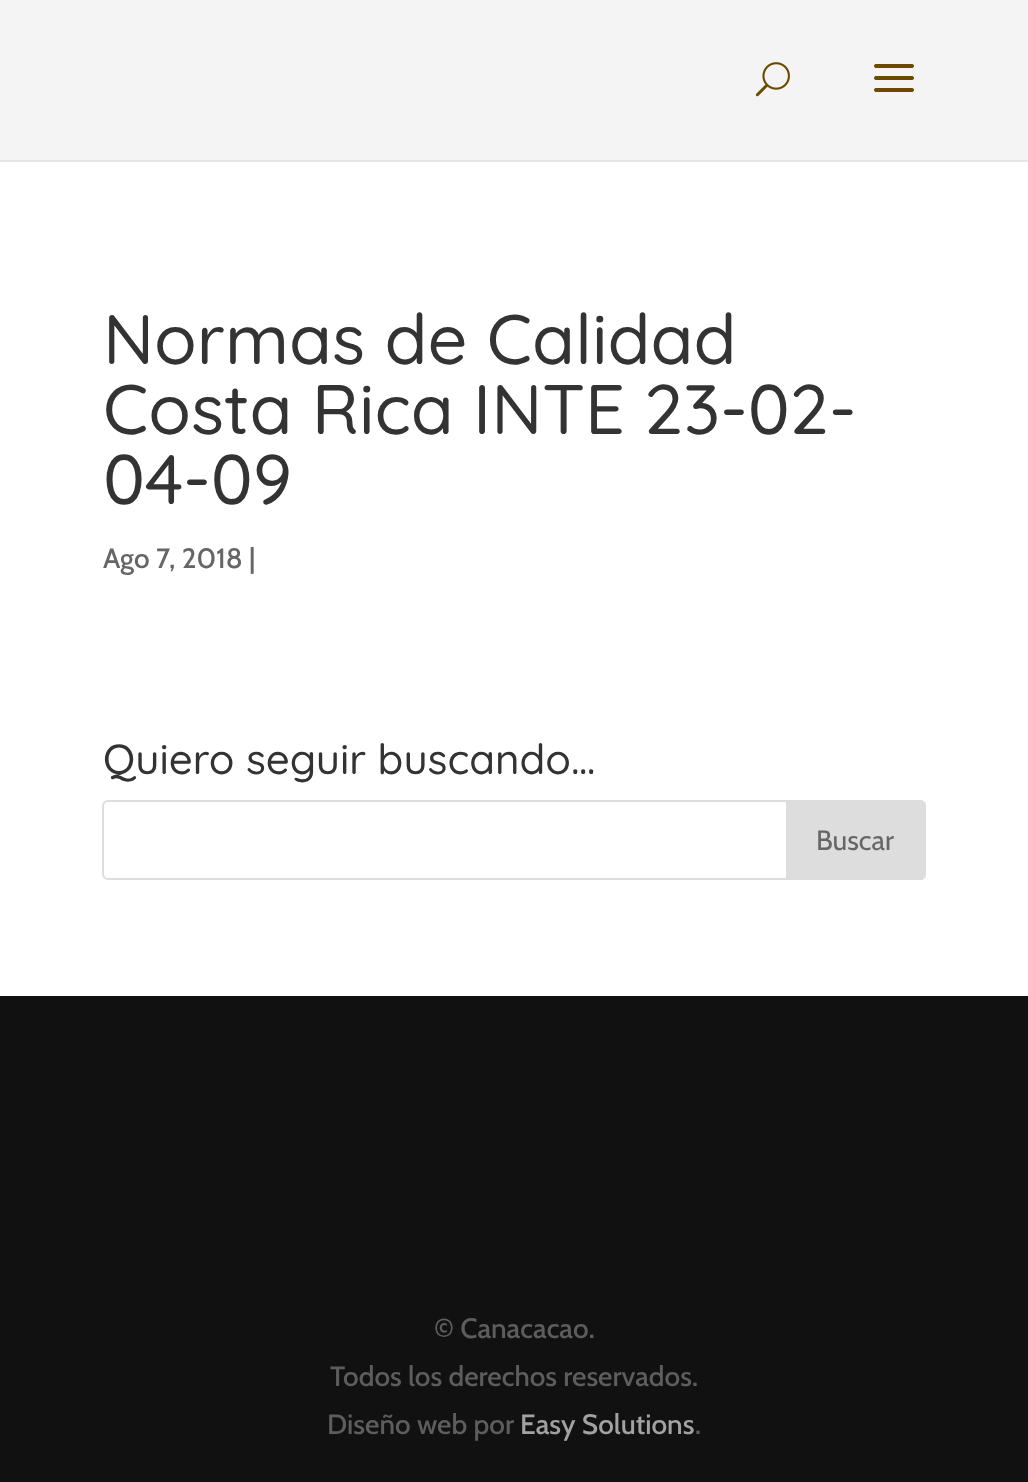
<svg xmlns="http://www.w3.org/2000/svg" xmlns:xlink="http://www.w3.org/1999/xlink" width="1028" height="1482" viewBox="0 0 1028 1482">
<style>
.cls-1{font:500 70px Quicksand;fill:#333333}
.cls-2{font:500 28px Cabin;fill:#666666}
.cls-3{font:500 42px Quicksand;fill:#333333}
.cls-4{font:28px Cabin;fill:#666666}
.cls-5{font:500 28px Cabin;fill:#5d5d5d}
.cls-6{font:500 28px Cabin;fill:#a3a2a2}
</style>
<rect width="100%" height="100%" fill="#ffffff"/>
<rect fill="#e6e6e6" x="0" y="160" width="1028" height="2"/>
<rect fill="#f4f4f4" x="0" y="0" width="1028" height="160"/>
<image xlink:href="image0.png" x="755" y="62" width="35" height="35"/>
<image xlink:href="image1.png" x="874" y="64" width="40" height="28"/>
<rect fill="none" stroke="#dddddd" stroke-width="2" x="103" y="801" width="822" height="78" rx="5"/>
<path fill="#dddddd" stroke="#dddddd" stroke-width="2" d="M787 801H920C923 801 925 803 925 806V874C925 877 923 879 920 879H787Z"/>
<rect fill="#111111" x="0" y="996" width="1028" height="486"/>
<text class="cls-1"><tspan x="103" y="364">Normas de Calidad</tspan><tspan x="103" y="434">Costa Rica INTE 23-02-</tspan><tspan x="103" y="504">04-09</tspan></text>
<text class="cls-2" x="103" y="568">Ago 7, 2018 |</text>
<text class="cls-3" x="103" y="774">Quiero seguir buscando…</text>
<text class="cls-4" x="816" y="850">Buscar</text>
<text class="cls-5" x="434" y="1338">© Canacacao.</text>
<text class="cls-5" x="330" y="1386">Todos los derechos reservados.</text>
<text class="cls-5" x="327" y="1434">Diseño web por</text>
<text class="cls-6" x="520" y="1434">Easy Solutions</text>
<text class="cls-5" x="695" y="1434">.</text>
</svg>
